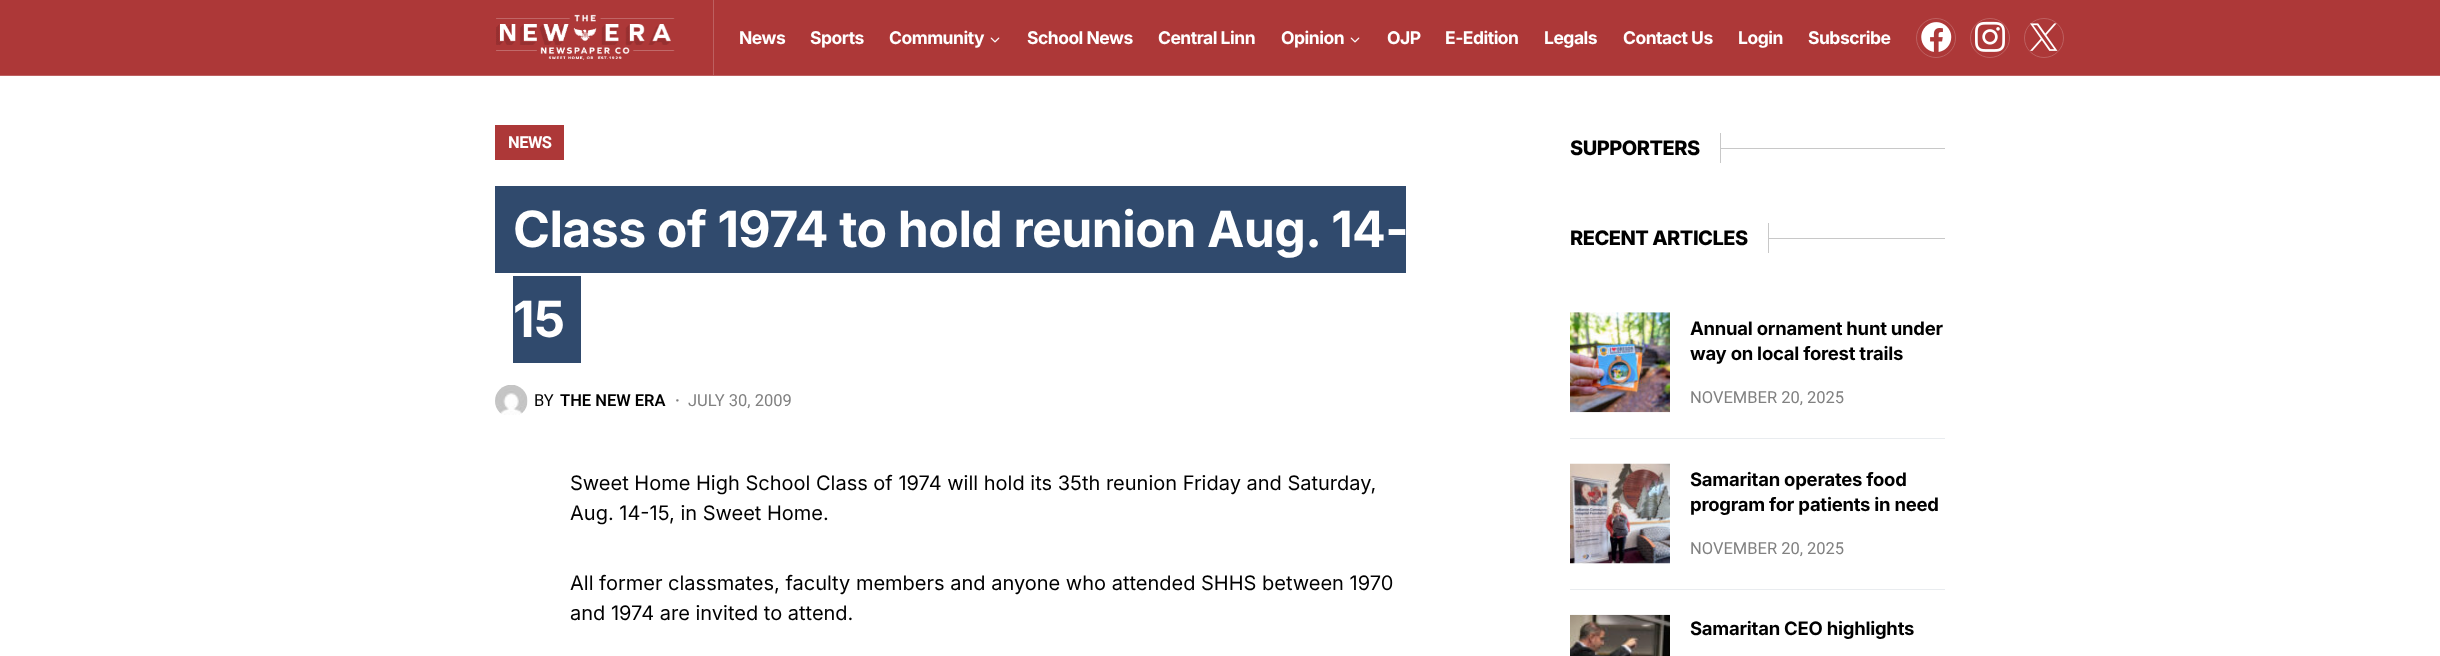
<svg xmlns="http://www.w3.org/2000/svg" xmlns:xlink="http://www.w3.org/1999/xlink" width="2440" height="656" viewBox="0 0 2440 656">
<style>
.cls-1{font:bold 17.5px Inter;letter-spacing:-0.5px;fill:#ffffff}
.cls-2{font:bold 16.5px Roboto;letter-spacing:-0.5px;fill:#ffffff}
.cls-3{font:bold 50px Inter;letter-spacing:-0.6px;fill:#ffffff}
.cls-4{font:16.5px Roboto;fill:#000000}
.cls-5{font:600 16.5px Roboto;fill:#000000}
.cls-6{font:600 16.5px Roboto;fill:#818181}
.cls-7{font:16.5px Roboto;fill:#818181}
.cls-8{font:20px Inter;fill:#000000}
.cls-9{font:800 20px Inter;letter-spacing:-0.5px;fill:#000000}
.cls-10{font:bold 18.5px Inter;letter-spacing:-0.25px;fill:#000000}
</style>
<rect width="100%" height="100%" fill="#ffffff"/>
<rect fill="#ad3838" x="0" y="0" width="2440" height="75"/>
<rect fill="#bd6060" x="0" y="75" width="2440" height="1"/>
<rect fill="#bd6060" x="713" y="0" width="1" height="75"/>
<image xlink:href="image0.png" x="496" y="14" width="179" height="46"/>
<image xlink:href="image1.png" x="990" y="37" width="10" height="6"/>
<image xlink:href="image1.png" x="1350" y="37" width="10" height="6"/>
<circle fill="none" stroke="#bd6060" cx="1936" cy="38" r="19.5"/>
<image xlink:href="image2.png" x="1921" y="22" width="31" height="30"/>
<circle fill="none" stroke="#bd6060" cx="1990" cy="38" r="19.5"/>
<image xlink:href="image3.png" x="1975" y="21" width="30" height="31"/>
<circle fill="none" stroke="#bd6060" cx="2044" cy="38" r="19.5"/>
<image xlink:href="image4.png" x="2030" y="23" width="28" height="28"/>
<rect fill="#ad3838" x="495" y="125" width="69" height="35"/>
<rect fill="#304a6d" x="495" y="186" width="911" height="87"/>
<rect fill="#304a6d" x="513" y="276" width="68" height="87"/>
<image xlink:href="image5.png" x="495" y="385" width="33" height="30"/>
<rect fill="#c8c8c8" x="1720" y="133" width="1" height="30"/>
<rect fill="#c8c8c8" x="1721" y="148" width="224" height="1"/>
<rect fill="#c8c8c8" x="1768" y="223" width="1" height="30"/>
<rect fill="#c8c8c8" x="1769" y="238" width="176" height="1"/>
<image xlink:href="image6.png" x="1570" y="312" width="100" height="101"/>
<rect fill="#e9ecef" x="1570" y="438" width="375" height="1"/>
<image xlink:href="image7.png" x="1570" y="463" width="100" height="101"/>
<rect fill="#e9ecef" x="1570" y="589" width="375" height="1"/>
<image xlink:href="image8.png" x="1570" y="614" width="100" height="42"/>
<text class="cls-1" x="739" y="44">News</text>
<text class="cls-1" x="810" y="44">Sports</text>
<text class="cls-1" x="889" y="44">Community</text>
<text class="cls-1" x="1027" y="44">School News</text>
<text class="cls-1" x="1158" y="44">Central Linn</text>
<text class="cls-1" x="1281" y="44">Opinion</text>
<text class="cls-1" x="1387" y="44">OJP</text>
<text class="cls-1" x="1445" y="44">E-Edition</text>
<text class="cls-1" x="1544" y="44">Legals</text>
<text class="cls-1" x="1623" y="44">Contact Us</text>
<text class="cls-1" x="1738" y="44">Login</text>
<text class="cls-1" x="1808" y="44">Subscribe</text>
<text class="cls-2" x="508" y="148">NEWS</text>
<text class="cls-3"><tspan x="513" y="247">Class of 1974 to hold reunion Aug. 14-</tspan><tspan x="513" y="337">15</tspan></text>
<text class="cls-4" x="534" y="406">BY</text>
<text class="cls-5" x="560" y="406">THE NEW ERA</text>
<text class="cls-6" x="675" y="406">·</text>
<text class="cls-7" x="688" y="406">JULY 30, 2009</text>
<text class="cls-8"><tspan x="570" y="490">Sweet Home High School Class of 1974 will hold its 35th reunion Friday and Saturday,</tspan><tspan x="570" y="520">Aug. 14-15, in Sweet Home.</tspan></text>
<text class="cls-8"><tspan x="570" y="590">All former classmates, faculty members and anyone who attended SHHS between 1970</tspan><tspan x="570" y="620">and 1974 are invited to attend.</tspan></text>
<text class="cls-9" x="1570" y="155">SUPPORTERS</text>
<text class="cls-9" x="1570" y="245">RECENT ARTICLES</text>
<text class="cls-10"><tspan x="1690" y="335">Annual ornament hunt under</tspan><tspan x="1690" y="360">way on local forest trails</tspan></text>
<text class="cls-7" x="1690" y="403">NOVEMBER 20, 2025</text>
<text class="cls-10"><tspan x="1690" y="486">Samaritan operates food</tspan><tspan x="1690" y="511">program for patients in need</tspan></text>
<text class="cls-7" x="1690" y="554">NOVEMBER 20, 2025</text>
<text class="cls-10" x="1690" y="635">Samaritan CEO highlights</text>
</svg>
